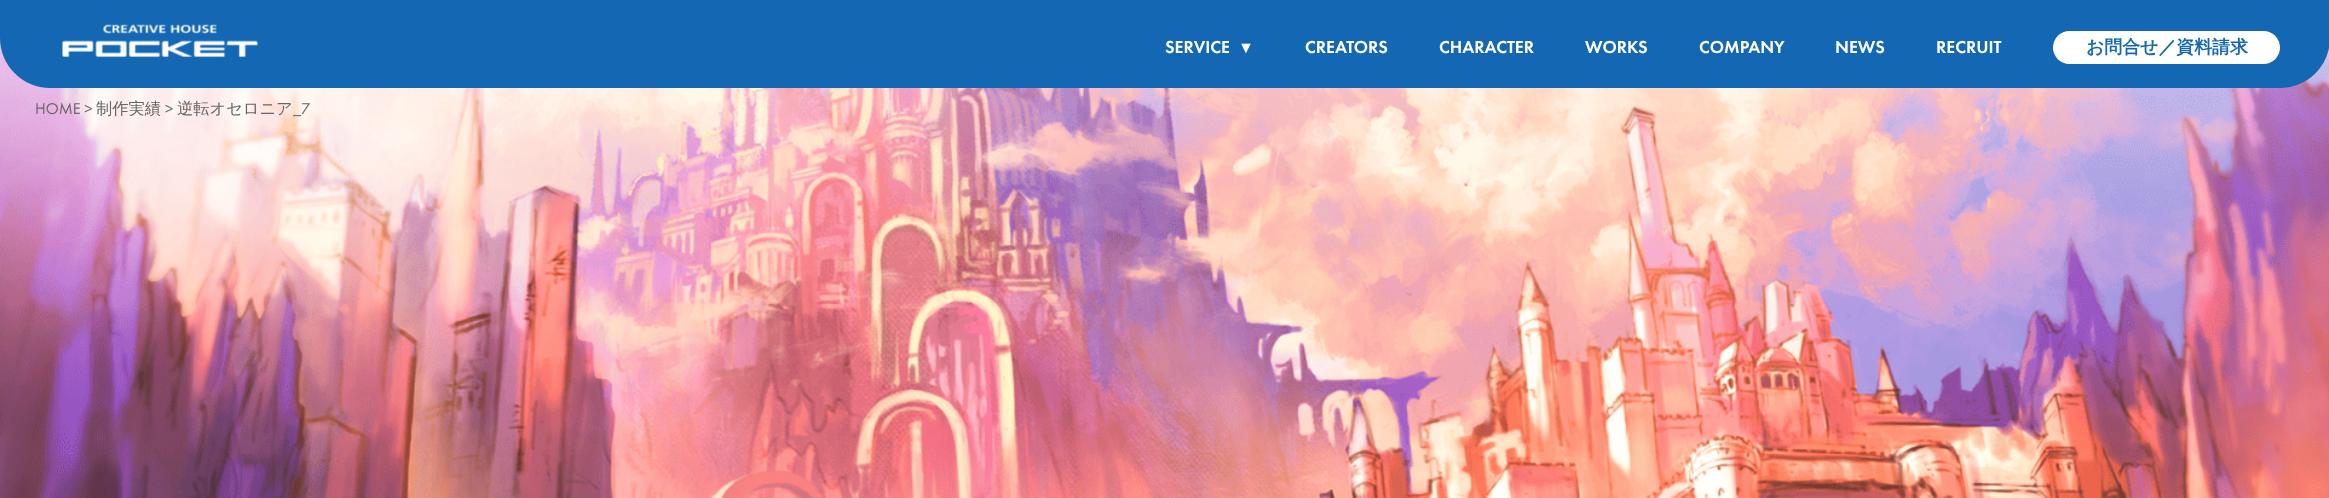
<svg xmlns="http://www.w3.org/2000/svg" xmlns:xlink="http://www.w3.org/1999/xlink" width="2329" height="498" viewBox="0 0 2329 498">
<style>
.cls-1{font:500 17.9px Futura PT;fill:#ffffff}
.cls-2{font:bold 16px Liberation Sans;fill:#ffffff}
.cls-3{font:bold 17.9px WenQuanYi Zen Hei;fill:#1468b3}
.cls-4{font:16.25px Futura PT;fill:#676767}
.cls-5{font:500 16.25px WenQuanYi Zen Hei;fill:#676767}
</style>
<rect width="100%" height="100%" fill="#ffffff"/>
<image xlink:href="image1.png" x="0" y="38" width="2329" height="460"/>
<path fill="#1468b3" d="M0 0H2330V38C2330 65.5 2307.5 88 2280 88H50C22.5 88 0 65.5 0 38Z"/>
<image xlink:href="image0.png" x="62" y="24" width="196" height="34"/>
<rect fill="#ffffff" x="2053" y="31" width="227" height="33" rx="16.5"/>
<text class="cls-1" x="1165" y="53">SERVICE</text>
<text class="cls-2" x="1238" y="53">▼</text>
<text class="cls-1" x="1305" y="53">CREATORS</text>
<text class="cls-1" x="1439" y="53">CHARACTER</text>
<text class="cls-1" x="1585" y="53">WORKS</text>
<text class="cls-1" x="1699" y="53">COMPANY</text>
<text class="cls-1" x="1835" y="53">NEWS</text>
<text class="cls-1" x="1936" y="53">RECRUIT</text>
<text class="cls-3" x="2086" y="53">お問合せ／資料請求</text>
<text class="cls-4" x="35" y="114">HOME &gt;</text>
<text class="cls-5" x="96" y="114">制作実績</text>
<text class="cls-4" x="165" y="114">&gt;</text>
<text class="cls-5" x="177" y="114">逆転オセロニア</text>
<text class="cls-4" x="293" y="114">_7</text>
</svg>
